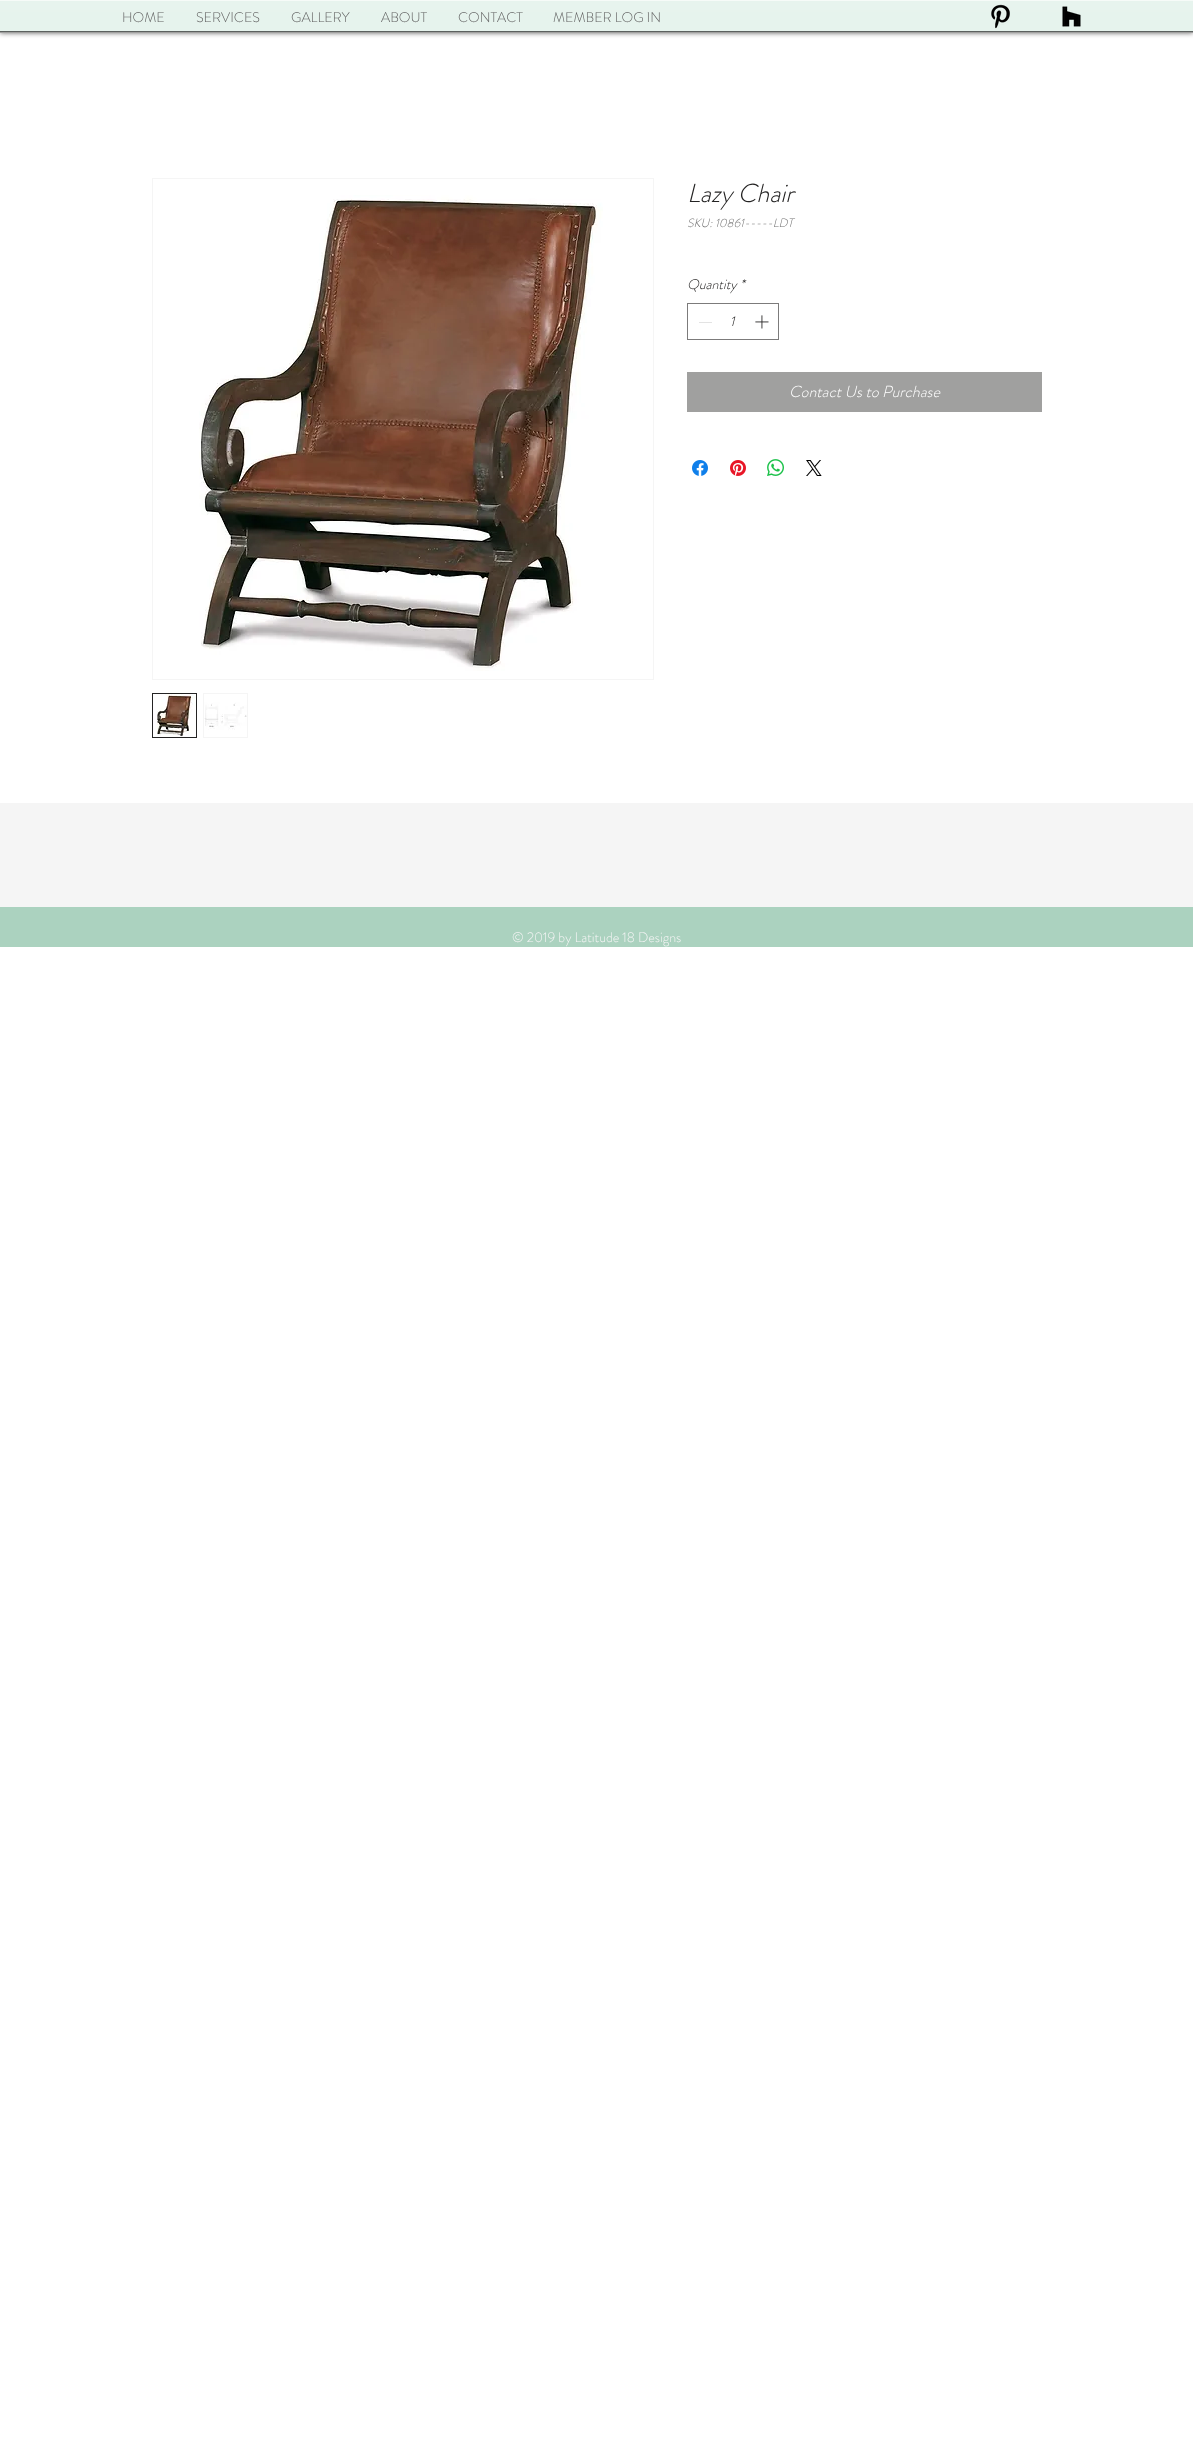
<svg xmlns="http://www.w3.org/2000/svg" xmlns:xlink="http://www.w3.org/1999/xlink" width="1193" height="2441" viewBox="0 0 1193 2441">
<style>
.cls-1{font:300 14px 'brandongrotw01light';fill:#626262}
.cls-2{font:italic 300 26px 'brandongrotw01light';fill:#242323}
.cls-3{font:italic 300 12px 'brandongrotw01light';fill:#737373}
.cls-4{font:italic 300 14px 'brandongrotw01light';fill:#242323}
.cls-5{font:italic 300 16px 'brandongrotw01light';fill:#ffffff}
.cls-6{font:300 14px 'brandongrotw01light';fill:#f5f5f5}
</style>
<rect width="100%" height="100%" fill="#ffffff"/>
<rect fill="#000000" fill-opacity="0.6" filter="blur(2.5px)" x="0" y="0" width="1193" height="33"/>
<rect fill="#dff0e8" x="0" y="1" width="1193" height="30"/>
<image xlink:href="image0.png" x="0" y="1" width="1193" height="30"/>
<rect fill="#5c615f" x="0" y="31" width="1193" height="1"/>
<rect fill="#f6fbf8" x="0" y="0" width="1193" height="1"/>
<rect fill="#a0a09f" x="0" y="32" width="1193" height="1"/>
<image xlink:href="image1.png" x="991" y="4" width="19" height="25"/>
<image xlink:href="image2.png" x="1062" y="6" width="19" height="21"/>
<rect fill="none" stroke="#f5f5f5" x="152.5" y="178.5" width="501" height="501"/>
<image xlink:href="image3.png" x="199" y="195" width="404" height="476"/>
<rect fill="none" stroke="#242323" x="152.5" y="693.5" width="44" height="44"/>
<image xlink:href="image4.png" x="153" y="694" width="43" height="43"/>
<rect fill="#f5f5f5" x="203" y="693" width="45" height="45"/>
<image xlink:href="image5.png" x="204" y="694" width="43" height="43"/>
<rect fill="none" stroke="#7c7b7b" x="687.5" y="303.5" width="91" height="36"/>
<rect fill="#e3e3e3" x="699" y="322" width="13" height="1"/>
<image xlink:href="image6.png" x="755" y="315" width="14" height="14"/>
<rect fill="#a0a09f" x="687" y="372" width="355" height="40"/>
<image xlink:href="image7.png" x="692" y="460" width="16" height="16"/>
<image xlink:href="image8.png" x="730" y="460" width="16" height="16"/>
<image xlink:href="image9.png" x="767" y="459" width="17" height="17"/>
<image xlink:href="image10.png" x="806" y="460" width="16" height="16"/>
<rect fill="#f5f5f5" x="0" y="803" width="1193" height="104"/>
<rect fill="#abd2bf" x="0" y="907" width="1193" height="40"/>
<text class="cls-1" x="122" y="22">HOME</text>
<text class="cls-1" x="196" y="22">SERVICES</text>
<text class="cls-1" x="291" y="22">GALLERY</text>
<text class="cls-1" x="381" y="22">ABOUT</text>
<text class="cls-1" x="458" y="22">CONTACT</text>
<text class="cls-1" x="553" y="22">MEMBER LOG IN</text>
<text class="cls-2" x="687" y="202">Lazy Chair</text>
<text class="cls-3" x="687" y="227">SKU: 10861-----LDT</text>
<text class="cls-4" x="687" y="289">Quantity</text>
<text class="cls-4" x="740" y="289">*</text>
<text class="cls-4" x="730" y="326">1</text>
<text class="cls-5" x="789" y="397">Contact Us to Purchase</text>
<text class="cls-6" x="512" y="942">© 2019 by Latitude 18 Designs</text>
</svg>
